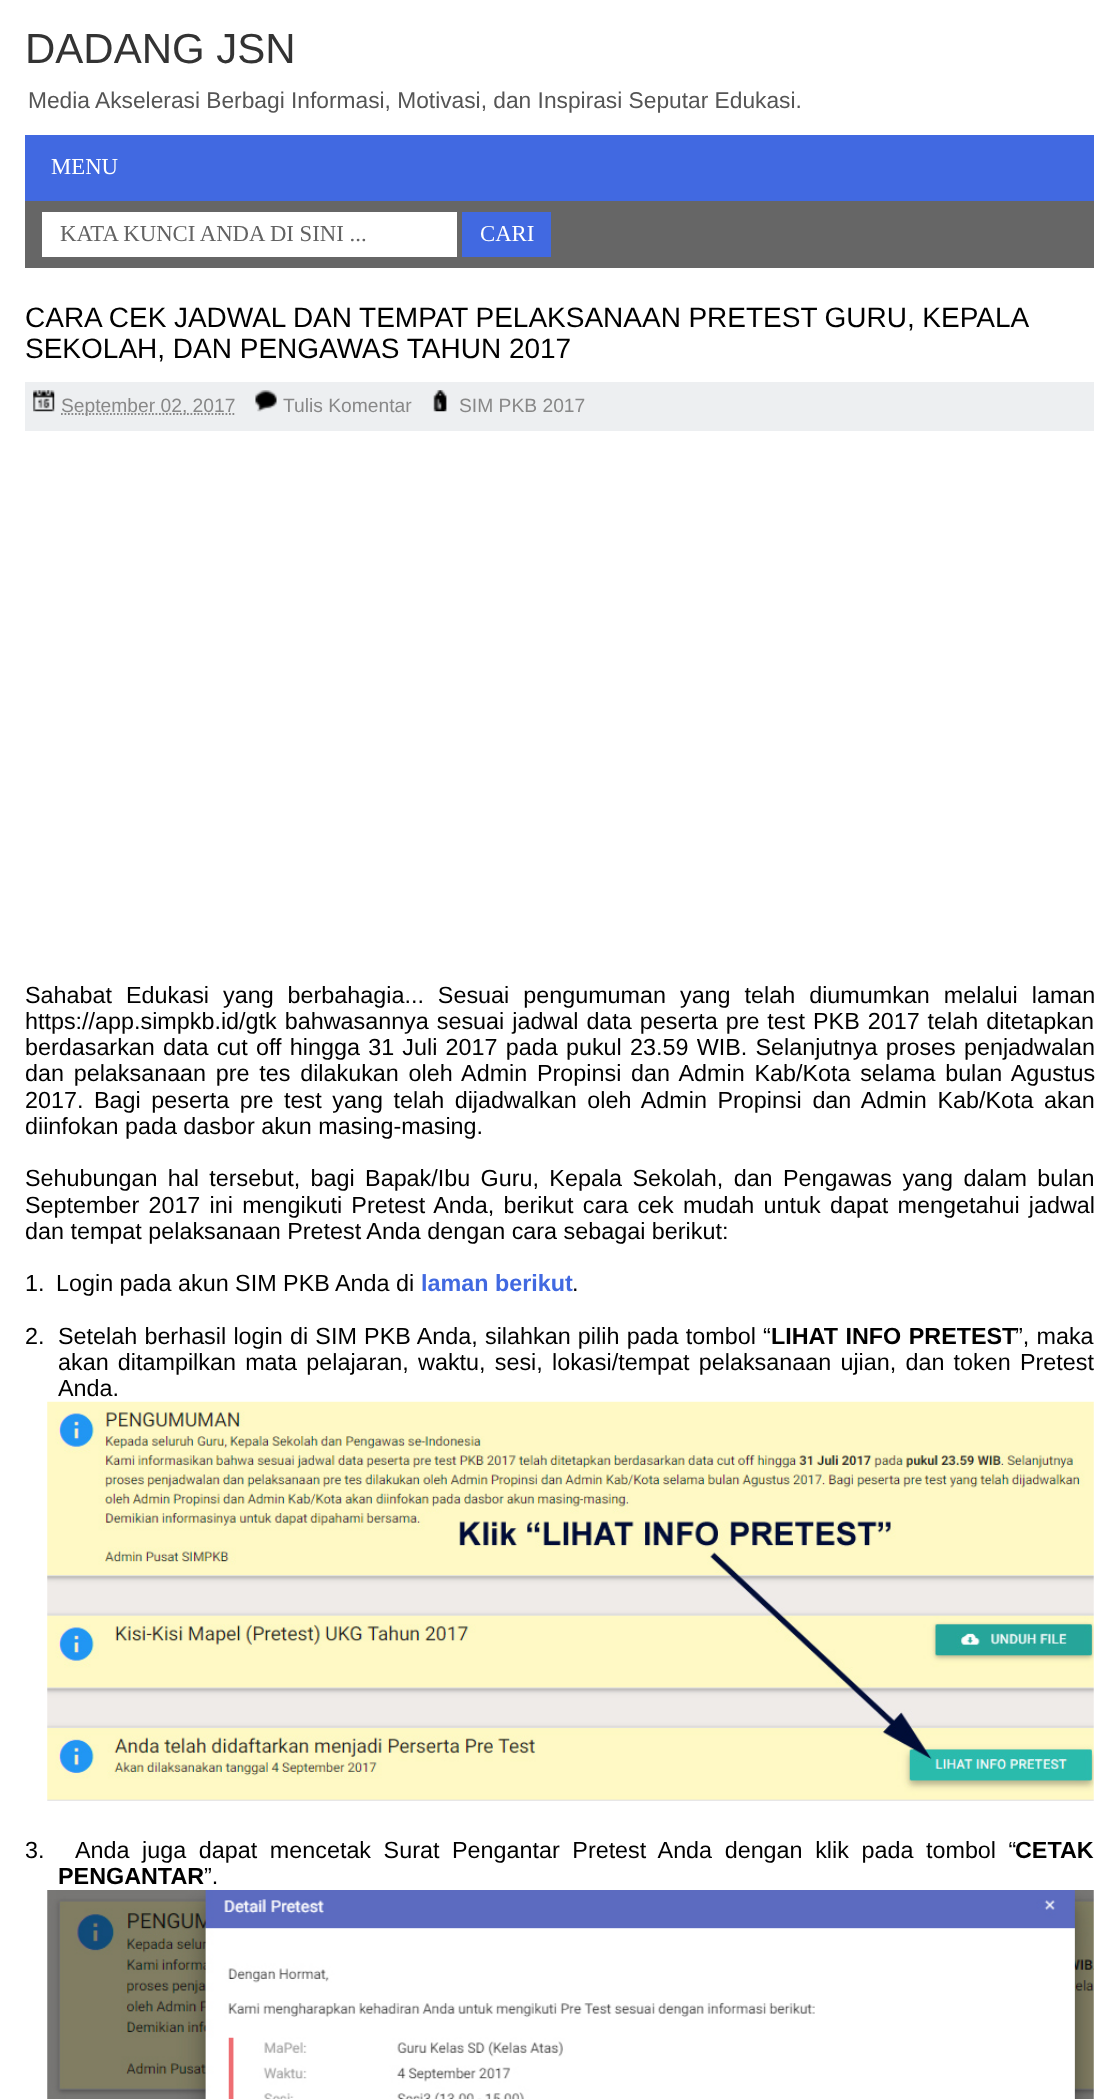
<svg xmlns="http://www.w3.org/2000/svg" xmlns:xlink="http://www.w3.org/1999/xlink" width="1118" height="2099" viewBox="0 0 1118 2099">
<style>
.cls-1{font:42px Liberation Sans;fill:#333333}
.cls-2{font:22.75px Liberation Sans;fill:#555555}
.cls-3{font:22.75px Liberation Serif;fill:#ffffff}
.cls-4{font:22.75px Liberation Serif;fill:#636363}
.cls-5{font:28px Liberation Sans;fill:#000000}
.cls-6{font:19.25px Liberation Sans;fill:#888888}
.cls-7{font:23.35px Liberation Sans;fill:#000000}
.cls-8{font:bold 23.35px Liberation Sans;fill:#4169e1}
.cls-9{font:bold 23.35px Liberation Sans;fill:#000000}
</style>
<rect width="100%" height="100%" fill="#ffffff"/>
<rect fill="#4169e1" x="25" y="135" width="1069" height="66"/>
<rect fill="#666666" x="25" y="201" width="1069" height="67"/>
<rect fill="#ffffff" x="42" y="212" width="415" height="45"/>
<rect fill="#4169e1" x="462" y="212" width="89" height="45"/>
<rect fill="#edeff1" x="25" y="382" width="1069" height="49"/>
<image xlink:href="image0.png" x="33" y="390" width="22" height="22"/>
<path fill="none" stroke="#888888" stroke-width="1.8" stroke-dasharray="1.75 1.75" d="M61 414H235.5"/>
<image xlink:href="image1.png" x="255" y="390" width="22" height="22"/>
<image xlink:href="image2.png" x="433" y="390" width="14" height="22"/>
<image xlink:href="image3.png" x="47" y="1401" width="1047" height="400"/>
<image xlink:href="image4.png" x="47" y="1890" width="1047" height="209"/>
<text class="cls-1" x="25" y="63">DADANG JSN</text>
<text class="cls-2" x="28" y="108">Media Akselerasi Berbagi Informasi, Motivasi, dan Inspirasi Seputar Edukasi.</text>
<text class="cls-3" x="51" y="174">MENU</text>
<text class="cls-4" x="60" y="241">KATA KUNCI ANDA DI SINI ...</text>
<text class="cls-3" x="480" y="241">CARI</text>
<text class="cls-5"><tspan x="25" y="327" word-spacing="-0.25">CARA CEK JADWAL DAN TEMPAT PELAKSANAAN PRETEST GURU, KEPALA</tspan><tspan x="25" y="358">SEKOLAH, DAN PENGAWAS TAHUN 2017</tspan></text>
<text class="cls-6" x="61" y="412">September 02, 2017</text>
<text class="cls-6" x="283" y="412">Tulis Komentar</text>
<text class="cls-6" x="459" y="412">SIM PKB 2017</text>
<text class="cls-7"><tspan x="25" y="1003" word-spacing="7.5">Sahabat Edukasi yang berbahagia... Sesuai pengumuman yang telah diumumkan melalui laman</tspan><tspan x="25" y="1029" word-spacing="1.5">https://app.simpkb.id/gtk bahwasannya sesuai jadwal data peserta pre test PKB 2017 telah ditetapkan</tspan><tspan x="25" y="1055" word-spacing="1.75">berdasarkan data cut off hingga 31 Juli 2017 pada pukul 23.59 WIB. Selanjutnya proses penjadwalan</tspan><tspan x="25" y="1081" word-spacing="3.25">dan pelaksanaan pre tes dilakukan oleh Admin Propinsi dan Admin Kab/Kota selama bulan Agustus</tspan><tspan x="25" y="1108" word-spacing="4.1">2017. Bagi peserta pre test yang telah dijadwalkan oleh Admin Propinsi dan Admin Kab/Kota akan</tspan><tspan x="25" y="1134">diinfokan pada dasbor akun masing-masing.</tspan></text>
<text class="cls-7"><tspan x="25" y="1186" word-spacing="3.9">Sehubungan hal tersebut, bagi Bapak/Ibu Guru, Kepala Sekolah, dan Pengawas yang dalam bulan</tspan><tspan x="25" y="1213" word-spacing="2.75">September 2017 ini mengikuti Pretest Anda, berikut cara cek mudah untuk dapat mengetahui jadwal</tspan><tspan x="25" y="1239">dan tempat pelaksanaan Pretest Anda dengan cara sebagai berikut:</tspan></text>
<text class="cls-7" x="25" y="1291">1.</text>
<text class="cls-7" x="56" y="1291">Login pada akun SIM PKB Anda di</text>
<text class="cls-8" x="421" y="1291">laman berikut</text>
<text class="cls-7" x="572" y="1291">.</text>
<text class="cls-7" x="25" y="1344">2.</text>
<text class="cls-7" x="58" y="1344" word-spacing="0.75">Setelah berhasil login di SIM PKB Anda, silahkan pilih pada tombol “</text>
<text class="cls-9" x="771" y="1344" word-spacing="1">LIHAT INFO PRETEST</text>
<text class="cls-7" x="1015" y="1344" word-spacing="0.75">”, maka</text>
<text class="cls-7"><tspan x="58" y="1370" word-spacing="2.75">akan ditampilkan mata pelajaran, waktu, sesi, lokasi/tempat pelaksanaan ujian, dan token Pretest</tspan><tspan x="58" y="1396">Anda.</tspan></text>
<text class="cls-7" x="25" y="1858">3.</text>
<text class="cls-7" x="75" y="1858" word-spacing="6.1">Anda juga dapat mencetak Surat Pengantar Pretest Anda dengan klik pada tombol “</text>
<text class="cls-9" x="1015" y="1858">CETAK</text>
<text class="cls-9" x="58" y="1884">PENGANTAR</text>
<text class="cls-7" x="204" y="1884">”.</text>
</svg>
